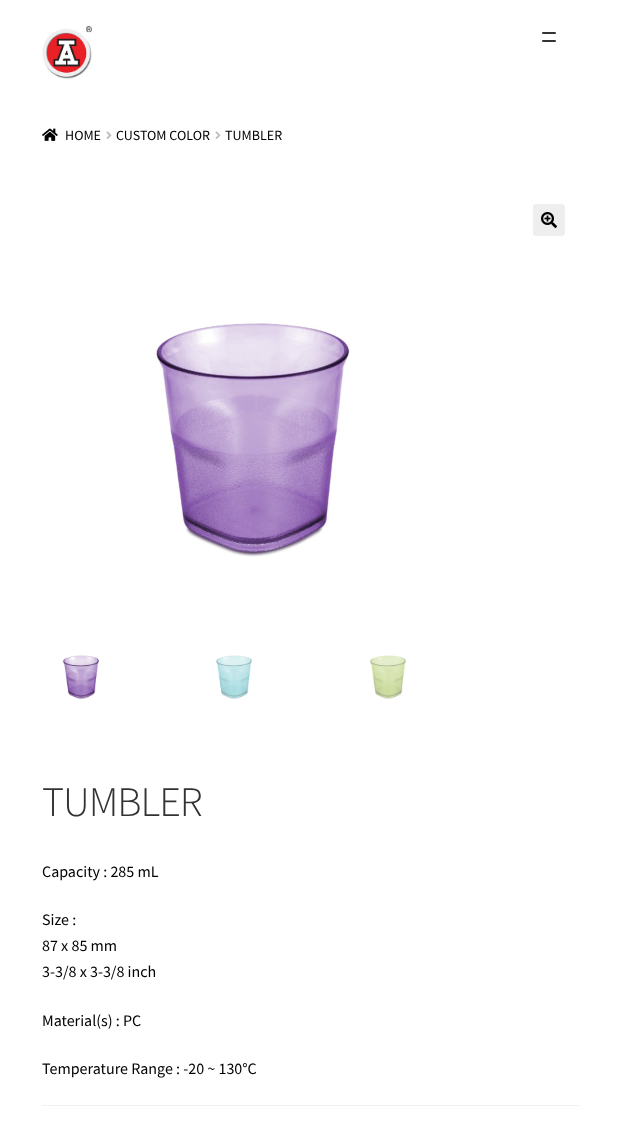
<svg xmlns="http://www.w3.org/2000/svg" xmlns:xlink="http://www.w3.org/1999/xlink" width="621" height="1148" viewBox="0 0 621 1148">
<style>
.cls-1{font:14px Source Sans Pro;fill:#020101}
.cls-2{font:300 42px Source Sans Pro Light;letter-spacing:-1px;fill:#333333}
.cls-3{font:16px Source Sans Pro;fill:#020101}
</style>
<rect width="100%" height="100%" fill="#ffffff"/>
<image xlink:href="image0.png" x="42" y="26" width="50" height="53"/>
<rect fill="#333333" x="542" y="32" width="14" height="2" rx="1"/>
<rect fill="#333333" x="542" y="40" width="14" height="2" rx="1"/>
<image xlink:href="image1.png" x="42" y="128" width="16" height="13"/>
<image xlink:href="image2.png" x="106" y="131" width="6" height="8"/>
<image xlink:href="image2.png" x="215" y="131" width="6" height="8"/>
<rect fill="#eeeeee" x="533" y="204" width="32" height="32" rx="3"/>
<image xlink:href="image3.png" x="541" y="212" width="16" height="16"/>
<image xlink:href="image4.png" x="154" y="323" width="200" height="235"/>
<image xlink:href="image5.png" x="62" y="655" width="37" height="44"/>
<image xlink:href="image6.png" x="215" y="655" width="37" height="44"/>
<image xlink:href="image7.png" x="369" y="655" width="37" height="44"/>
<rect fill="#f2f2f2" x="42" y="1105" width="537" height="1"/>
<text class="cls-1" x="65" y="140">HOME</text>
<text class="cls-1" x="116" y="140">CUSTOM COLOR</text>
<text class="cls-1" x="225" y="140">TUMBLER</text>
<text class="cls-2" x="42" y="816">TUMBLER</text>
<text class="cls-3" x="42" y="877">Capacity : 285 mL</text>
<text class="cls-3"><tspan x="42" y="925">Size :</tspan><tspan x="42" y="951">87 x 85 mm</tspan><tspan x="42" y="977">3-3/8 x 3-3/8 inch</tspan></text>
<text class="cls-3" x="42" y="1026">Material(s) : PC</text>
<text class="cls-3" x="42" y="1074">Temperature Range : -20 ~ 130°C</text>
</svg>
